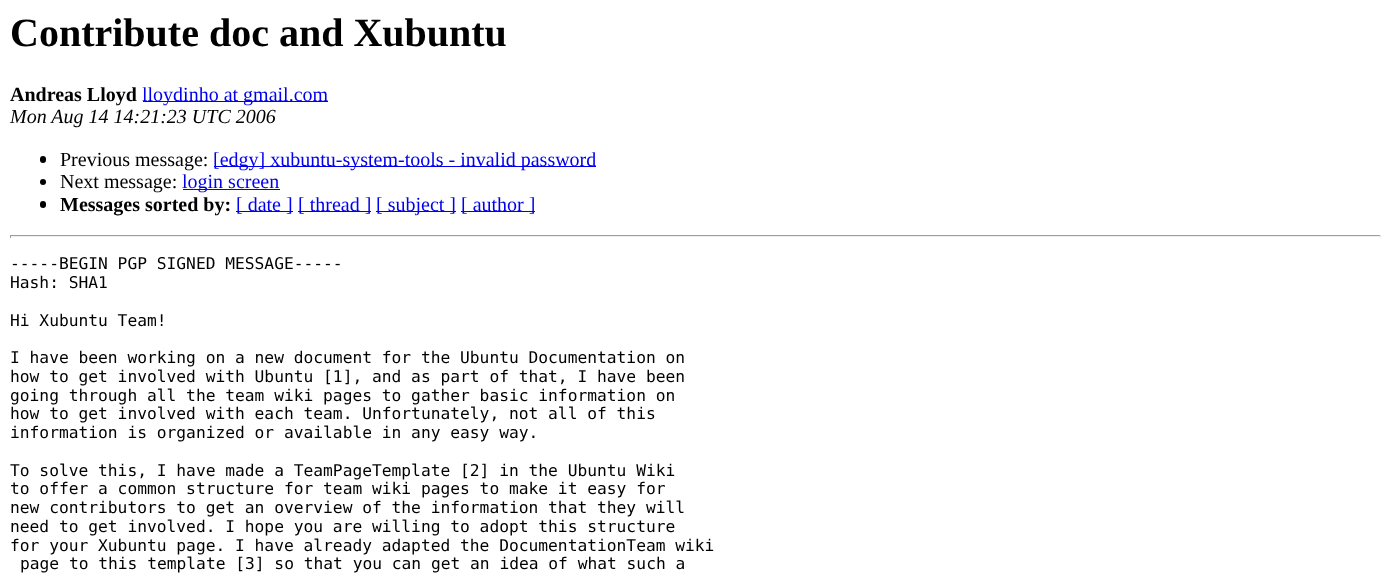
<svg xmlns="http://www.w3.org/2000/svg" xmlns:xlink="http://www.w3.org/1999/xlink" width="1391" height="577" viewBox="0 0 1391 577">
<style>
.cls-1{font:bold 40px Liberation Serif;fill:#000000}
.cls-2{font:bold 20px Liberation Serif;fill:#000000}
.cls-3{font:20px Liberation Serif;fill:#0000ee}
.cls-4{font:italic 20px Liberation Serif;fill:#000000}
.cls-5{font:20px Liberation Serif;fill:#000000}
.cls-6{font:16.25px DejaVu Sans Mono;fill:#000000}
</style>
<rect width="100%" height="100%" fill="#ffffff"/>
<rect fill="#0000ee" x="143" y="101" width="185" height="1"/>
<rect fill="#000000" x="40" y="156" width="6" height="7" rx="3"/>
<rect fill="#0000ee" x="214" y="166" width="382" height="1"/>
<circle fill="#000000" cx="43" cy="182" r="3"/>
<rect fill="#0000ee" x="183" y="189" width="97" height="1"/>
<rect fill="#000000" x="40" y="201" width="6" height="7" rx="3"/>
<rect fill="#0000ee" x="236" y="211" width="57" height="1"/>
<rect fill="#0000ee" x="298" y="211" width="73" height="1"/>
<rect fill="#0000ee" x="376" y="211" width="80" height="1"/>
<rect fill="#0000ee" x="461" y="211" width="74" height="1"/>
<rect fill="#9f9f9f" x="10" y="235" width="1371" height="1"/>
<rect fill="#eeeeee" x="1380" y="235" width="1" height="3"/>
<rect fill="#eeeeee" x="10" y="236" width="1371" height="1"/>
<rect fill="#9f9f9f" x="10" y="235" width="1" height="3"/>
<text class="cls-1" x="10" y="46">Contribute doc and Xubuntu</text>
<text class="cls-2" x="10" y="101">Andreas Lloyd</text>
<text class="cls-3" x="142" y="101">lloydinho at gmail.com</text>
<text class="cls-4" x="10" y="123">Mon Aug 14 14:21:23 UTC 2006</text>
<text class="cls-5" x="60" y="166">Previous message:</text>
<text class="cls-3" x="213" y="166">[edgy] xubuntu-system-tools - invalid password</text>
<text class="cls-5" x="60" y="188">Next message:</text>
<text class="cls-3" x="182" y="188">login screen</text>
<text class="cls-2" x="60" y="211">Messages sorted by:</text>
<text class="cls-3" x="236" y="211">[ date ]</text>
<text class="cls-3" x="298" y="211">[ thread ]</text>
<text class="cls-3" x="376" y="211">[ subject ]</text>
<text class="cls-3" x="461" y="211">[ author ]</text>
<text class="cls-6"><tspan x="10" y="269">-----BEGIN PGP SIGNED MESSAGE-----</tspan><tspan x="10" y="288">Hash: SHA1</tspan></text>
<text class="cls-6" x="10" y="326">Hi Xubuntu Team!</text>
<text class="cls-6"><tspan x="10" y="363">I have been working on a new document for the Ubuntu Documentation on</tspan><tspan x="10" y="382">how to get involved with Ubuntu [1], and as part of that, I have been</tspan><tspan x="10" y="401">going through all the team wiki pages to gather basic information on</tspan><tspan x="10" y="419">how to get involved with each team. Unfortunately, not all of this</tspan><tspan x="10" y="438">information is organized or available in any easy way.</tspan></text>
<text class="cls-6"><tspan x="10" y="476">To solve this, I have made a TeamPageTemplate [2] in the Ubuntu Wiki</tspan><tspan x="10" y="494">to offer a common structure for team wiki pages to make it easy for</tspan><tspan x="10" y="513">new contributors to get an overview of the information that they will</tspan><tspan x="10" y="532">need to get involved. I hope you are willing to adopt this structure</tspan><tspan x="10" y="551">for your Xubuntu page. I have already adapted the DocumentationTeam wiki</tspan></text>
<text class="cls-6" x="20" y="569">page to this template [3] so that you can get an idea of what such a</text>
</svg>
